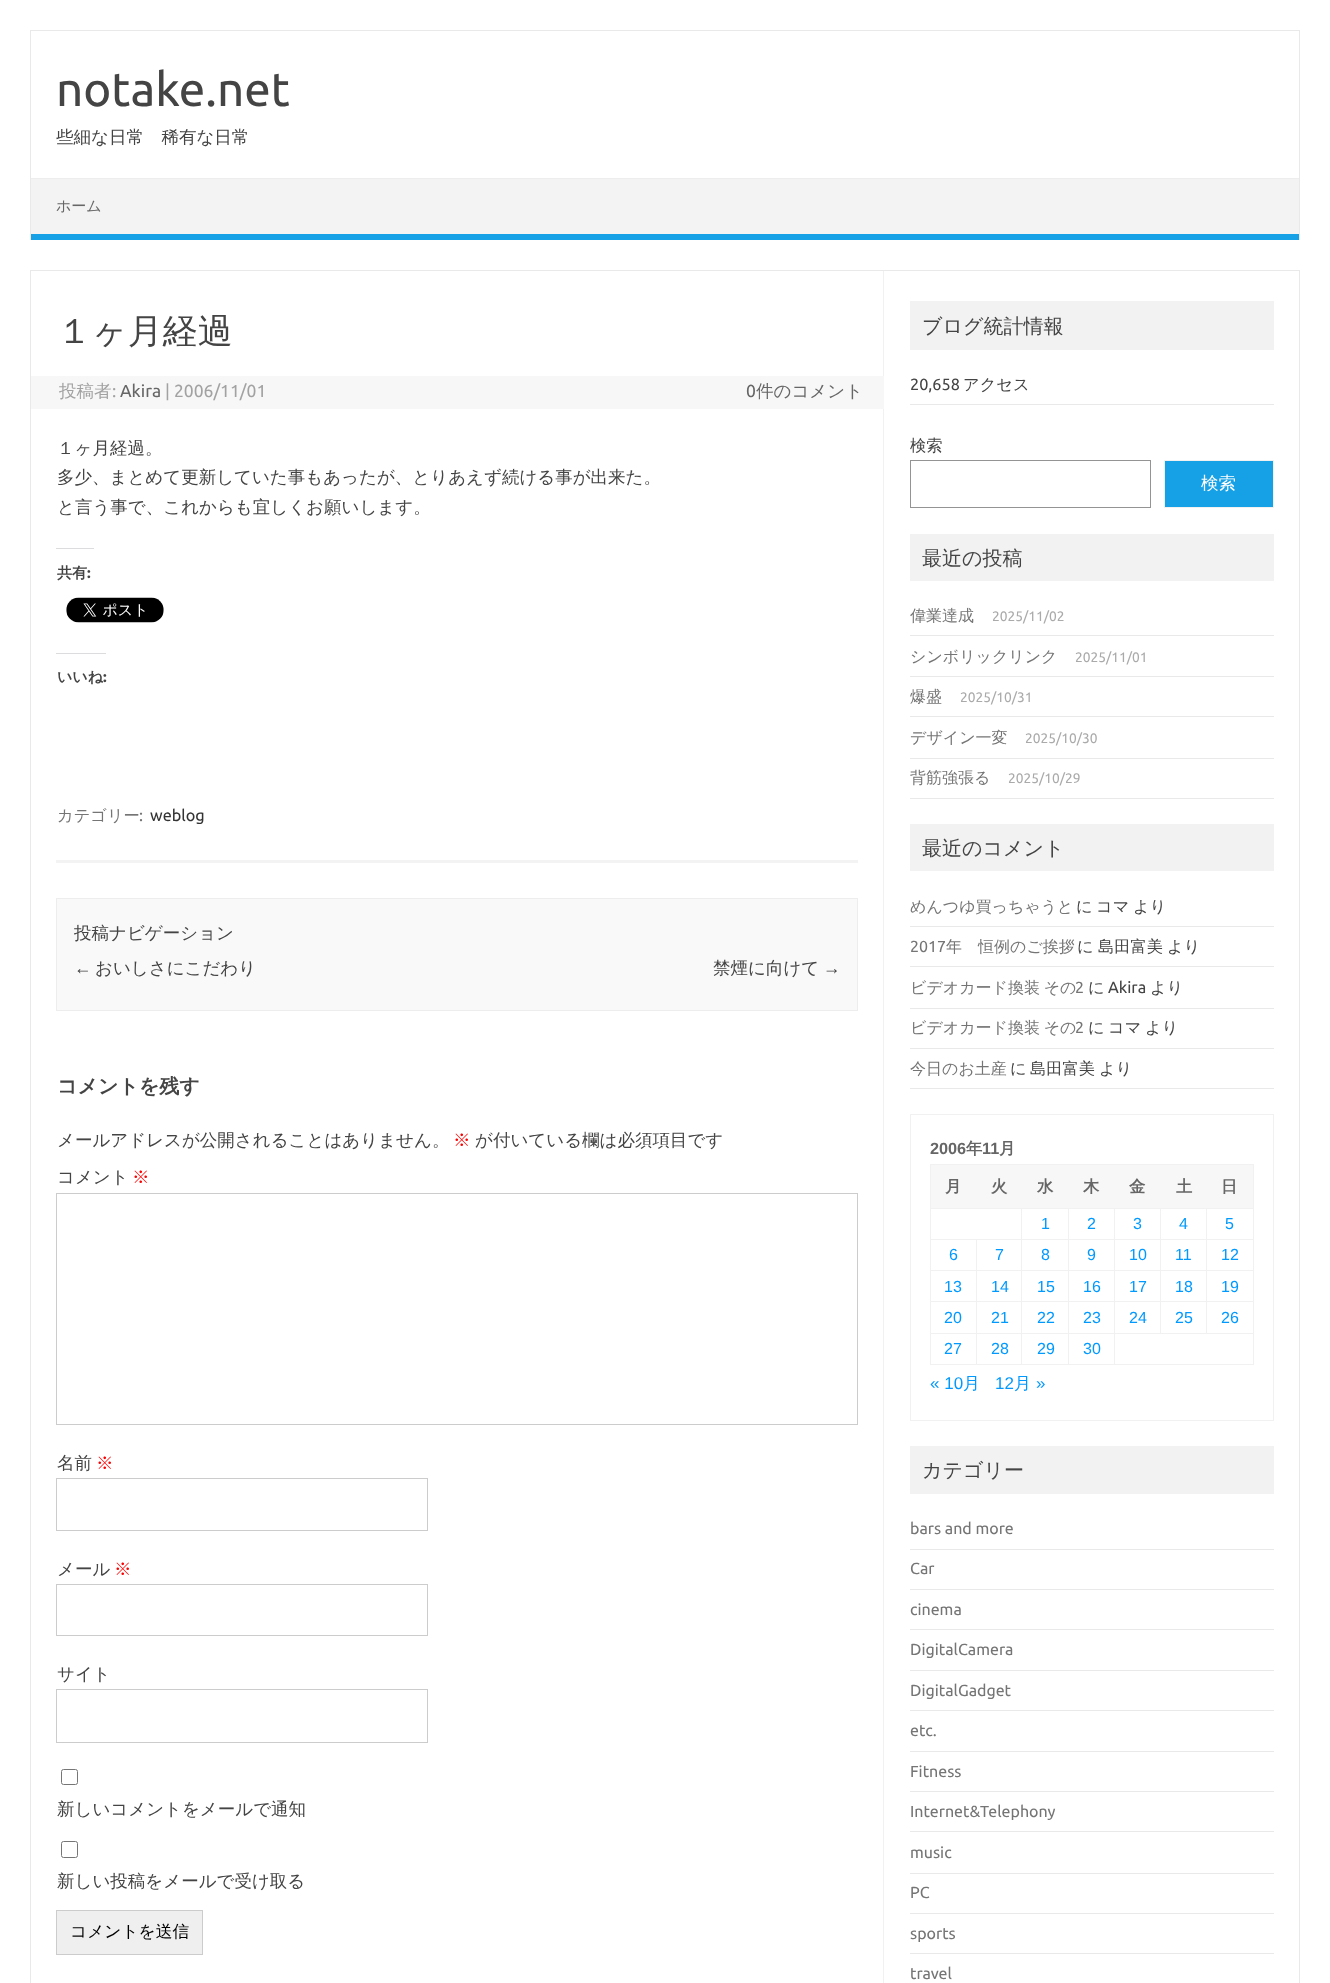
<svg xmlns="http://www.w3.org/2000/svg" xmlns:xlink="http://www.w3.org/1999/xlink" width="1330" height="1983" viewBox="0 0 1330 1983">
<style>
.cls-1{font:47.5px Ubuntu;fill:#444444}
.cls-2{font:500 17.5px WenQuanYi Zen Hei;fill:#444444}
.cls-3{font:500 15px WenQuanYi Zen Hei;fill:#666666}
.cls-4{font:500 35px WenQuanYi Zen Hei;fill:#444444}
.cls-5{font:500 17.5px WenQuanYi Zen Hei;fill:#a2a2a2}
.cls-6{font:17.5px Ubuntu;fill:#a2a2a2}
.cls-7{font:17.5px Ubuntu;fill:#666666}
.cls-8{font:500 17.5px WenQuanYi Zen Hei;fill:#666666}
.cls-9{font:bold 15px WenQuanYi Zen Hei;fill:#444444}
.cls-10{font:bold 15px Ubuntu;fill:#444444}
.cls-11{font:500 16.25px WenQuanYi Zen Hei;fill:#757575}
.cls-12{font:16.25px Ubuntu;fill:#757575}
.cls-13{font:16.25px Ubuntu;fill:#333333}
.cls-14{font:17.5px Liberation Sans;fill:#444444}
.cls-15{font:bold 20px WenQuanYi Zen Hei;fill:#444444}
.cls-16{font:500 17.5px WenQuanYi Zen Hei;fill:#ff0000}
.cls-17{font:500 16.75px WenQuanYi Zen Hei;fill:#000000}
.cls-18{font:500 20px WenQuanYi Zen Hei;fill:#444444}
.cls-19{font:16.25px Ubuntu;fill:#444444}
.cls-20{font:500 16.25px WenQuanYi Zen Hei;fill:#444444}
.cls-21{font:500 17.5px WenQuanYi Zen Hei;fill:#ffffff}
.cls-22{font:500 16px WenQuanYi Zen Hei;fill:#757575}
.cls-23{font:13.75px Ubuntu;fill:#aaaaaa}
.cls-24{font:16px Ubuntu;fill:#757575}
.cls-25{font:bold 16.25px Liberation Sans;fill:#666666}
.cls-26{font:bold 16.25px WenQuanYi Zen Hei;fill:#666666}
.cls-27{font:16px Liberation Sans;fill:#0099ff}
.cls-28{font:17px Liberation Sans;fill:#0099ff}
.cls-29{font:500 17px WenQuanYi Zen Hei;fill:#0099ff}
</style>
<rect width="100%" height="100%" fill="#ffffff"/>
<rect fill="#e9e9e9" x="30" y="30" width="1270" height="1"/>
<rect fill="#e9e9e9" x="1299" y="30" width="1" height="210"/>
<rect fill="#e9e9e9" x="30" y="30" width="1" height="210"/>
<rect fill="#f3f3f3" x="31" y="179" width="1268" height="55"/>
<rect fill="#ededed" x="31" y="178" width="1268" height="1"/>
<rect fill="#16a1e7" x="31" y="234" width="1268" height="6"/>
<rect fill="none" stroke="#e9e9e9" x="30.5" y="270.5" width="1269" height="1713"/>
<rect fill="#f1f1f1" x="883" y="271" width="1" height="1712"/>
<rect fill="#f3f3f3" x="56" y="860" width="802" height="3"/>
<rect fill="#f7f7f7" x="31" y="376" width="853" height="33"/>
<rect fill="#dcdcde" x="56" y="548" width="38" height="1"/>
<image xlink:href="image0.png" x="66" y="597" width="98" height="26"/>
<rect fill="#dcdcde" x="56" y="653" width="50" height="1"/>
<rect fill="#f9f9f9" stroke="#ededed" x="56.5" y="898.5" width="801" height="112"/>
<rect fill="none" stroke="#cccccc" x="56.5" y="1193.5" width="801" height="231"/>
<rect fill="none" stroke="#cccccc" x="56.5" y="1478.5" width="371" height="52"/>
<rect fill="none" stroke="#cccccc" x="56.5" y="1584.5" width="371" height="51"/>
<rect fill="none" stroke="#cccccc" x="56.5" y="1689.5" width="371" height="53"/>
<rect fill="none" stroke="#767676" x="61.5" y="1769.5" width="16" height="15" rx="2"/>
<rect fill="none" stroke="#767676" x="61.5" y="1841.5" width="16" height="16" rx="2"/>
<rect fill="#efefef" stroke="#cccccc" x="56.5" y="1910.5" width="146" height="44"/>
<rect fill="#f2f2f2" x="910" y="301" width="364" height="49"/>
<rect fill="#e9e9e9" x="910" y="404" width="364" height="1"/>
<rect fill="none" stroke="#949494" x="910.5" y="460.5" width="240" height="47"/>
<rect fill="#16a1e7" stroke="#f1f1f1" x="1164.5" y="460.5" width="109" height="47"/>
<rect fill="#f2f2f2" x="910" y="534" width="364" height="47"/>
<rect fill="#e9e9e9" x="910" y="635" width="364" height="1"/>
<rect fill="#e9e9e9" x="910" y="676" width="364" height="1"/>
<rect fill="#e9e9e9" x="910" y="716" width="364" height="1"/>
<rect fill="#e9e9e9" x="910" y="758" width="364" height="1"/>
<rect fill="#e9e9e9" x="910" y="798" width="364" height="1"/>
<rect fill="#f2f2f2" x="910" y="824" width="364" height="47"/>
<rect fill="#e9e9e9" x="910" y="926" width="364" height="1"/>
<rect fill="#e9e9e9" x="910" y="966" width="364" height="1"/>
<rect fill="#e9e9e9" x="910" y="1008" width="364" height="1"/>
<rect fill="#e9e9e9" x="910" y="1048" width="364" height="1"/>
<rect fill="#e9e9e9" x="910" y="1088" width="364" height="1"/>
<rect fill="none" stroke="#f1f1f1" x="910.5" y="1114.5" width="363" height="306"/>
<rect fill="#f7f7f7" x="931" y="1165" width="322" height="43"/>
<rect fill="#f1f1f1" x="930" y="1164" width="324" height="1"/>
<rect fill="#f1f1f1" x="930" y="1208" width="324" height="1"/>
<rect fill="#f1f1f1" x="930" y="1239" width="324" height="1"/>
<rect fill="#f1f1f1" x="930" y="1270" width="324" height="1"/>
<rect fill="#f1f1f1" x="930" y="1301" width="324" height="1"/>
<rect fill="#f1f1f1" x="930" y="1333" width="324" height="1"/>
<rect fill="#f1f1f1" x="1253" y="1333" width="1" height="32"/>
<rect fill="#f1f1f1" x="1253" y="1301" width="1" height="33"/>
<rect fill="#f1f1f1" x="1253" y="1270" width="1" height="33"/>
<rect fill="#f1f1f1" x="1253" y="1239" width="1" height="32"/>
<rect fill="#f1f1f1" x="1253" y="1208" width="1" height="32"/>
<rect fill="#f1f1f1" x="1253" y="1164" width="1" height="45"/>
<rect fill="#f1f1f1" x="930" y="1364" width="324" height="1"/>
<rect fill="#f1f1f1" x="930" y="1333" width="1" height="32"/>
<rect fill="#f1f1f1" x="930" y="1301" width="1" height="33"/>
<rect fill="#f1f1f1" x="930" y="1270" width="1" height="33"/>
<rect fill="#f1f1f1" x="930" y="1239" width="1" height="32"/>
<rect fill="#f1f1f1" x="930" y="1208" width="1" height="32"/>
<rect fill="#f1f1f1" x="930" y="1164" width="1" height="45"/>
<rect fill="#f1f1f1" x="1160" y="1208" width="1" height="126"/>
<rect fill="#f1f1f1" x="1206" y="1208" width="1" height="126"/>
<rect fill="#f1f1f1" x="976" y="1239" width="1" height="126"/>
<rect fill="#f1f1f1" x="1021" y="1208" width="1" height="157"/>
<rect fill="#f1f1f1" x="1068" y="1208" width="1" height="157"/>
<rect fill="#f1f1f1" x="1114" y="1208" width="1" height="157"/>
<rect fill="#f2f2f2" x="910" y="1446" width="364" height="48"/>
<rect fill="#e9e9e9" x="910" y="1549" width="364" height="1"/>
<rect fill="#e9e9e9" x="910" y="1589" width="364" height="1"/>
<rect fill="#e9e9e9" x="910" y="1629" width="364" height="1"/>
<rect fill="#e9e9e9" x="910" y="1670" width="364" height="1"/>
<rect fill="#e9e9e9" x="910" y="1710" width="364" height="1"/>
<rect fill="#e9e9e9" x="910" y="1751" width="364" height="1"/>
<rect fill="#e9e9e9" x="910" y="1791" width="364" height="1"/>
<rect fill="#e9e9e9" x="910" y="1831" width="364" height="1"/>
<rect fill="#e9e9e9" x="910" y="1873" width="364" height="1"/>
<rect fill="#e9e9e9" x="910" y="1913" width="364" height="1"/>
<rect fill="#e9e9e9" x="910" y="1953" width="364" height="1"/>
<text class="cls-1" x="56" y="106">notake.net</text>
<text class="cls-2" x="56" y="143">些細な日常　稀有な日常</text>
<text class="cls-3" x="56" y="211">ホーム</text>
<text class="cls-4" x="57" y="343">１ヶ月経過</text>
<text class="cls-5" x="59" y="397">投稿者</text>
<text class="cls-6" x="112" y="397">:</text>
<text class="cls-7" x="120" y="397">Akira</text>
<text class="cls-6" x="165" y="397">| 2006/11/01</text>
<text class="cls-7" x="746" y="397">0</text>
<text class="cls-8" x="756" y="397">件のコメント</text>
<text class="cls-2"><tspan x="57" y="454">１ヶ月経過。</tspan><tspan x="57" y="483">多少、まとめて更新していた事もあったが、とりあえず続ける事が出来た。</tspan><tspan x="57" y="513">と言う事で、これからも宜しくお願いします。</tspan></text>
<text class="cls-9" x="57" y="578">共有</text>
<text class="cls-10" x="87" y="578">:</text>
<text class="cls-9" x="57" y="682">いいね</text>
<text class="cls-10" x="103" y="682">:</text>
<text class="cls-11" x="57" y="821">カテゴリー</text>
<text class="cls-12" x="139" y="821">:</text>
<text class="cls-13" x="150" y="821">weblog</text>
<text class="cls-2" x="74" y="939">投稿ナビゲーション</text>
<text class="cls-14" x="74" y="974">←</text>
<text class="cls-2" x="95" y="974">おいしさにこだわり</text>
<text class="cls-2" x="713" y="974">禁煙に向けて</text>
<text class="cls-14" x="823" y="974">→</text>
<text class="cls-15" x="57" y="1093">コメントを残す</text>
<text class="cls-2" x="57" y="1146">メールアドレスが公開されることはありません。</text>
<text class="cls-16" x="453" y="1146">※</text>
<text class="cls-2" x="475" y="1146">が付いている欄は必須項目です</text>
<text class="cls-2" x="57" y="1183">コメント</text>
<text class="cls-16" x="132" y="1183">※</text>
<text class="cls-2" x="57" y="1469">名前</text>
<text class="cls-16" x="96" y="1469">※</text>
<text class="cls-2" x="57" y="1575">メール</text>
<text class="cls-16" x="114" y="1575">※</text>
<text class="cls-2" x="57" y="1680">サイト</text>
<text class="cls-2" x="57" y="1815">新しいコメントをメールで通知</text>
<text class="cls-2" x="57" y="1887">新しい投稿をメールで受け取る</text>
<text class="cls-17" x="70" y="1937">コメントを送信</text>
<text class="cls-18" x="922" y="333">ブログ統計情報</text>
<text class="cls-19" x="910" y="390">20,658</text>
<text class="cls-20" x="963" y="390">アクセス</text>
<text class="cls-20" x="910" y="451">検索</text>
<text class="cls-21" x="1201" y="489">検索</text>
<text class="cls-18" x="922" y="565">最近の投稿</text>
<text class="cls-22" x="910" y="621">偉業達成</text>
<text class="cls-23" x="992" y="621">2025/11/02</text>
<text class="cls-22" x="910" y="662">シンボリックリンク</text>
<text class="cls-23" x="1075" y="662">2025/11/01</text>
<text class="cls-22" x="910" y="702">爆盛</text>
<text class="cls-23" x="960" y="702">2025/10/31</text>
<text class="cls-22" x="910" y="743">デザイン一変</text>
<text class="cls-23" x="1025" y="743">2025/10/30</text>
<text class="cls-22" x="910" y="783">背筋強張る</text>
<text class="cls-23" x="1008" y="783">2025/10/29</text>
<text class="cls-18" x="922" y="855">最近のコメント</text>
<text class="cls-22" x="910" y="912">めんつゆ買っちゃうと</text>
<text class="cls-20" x="1076" y="912">に</text>
<text class="cls-20" x="1096" y="912">コマ</text>
<text class="cls-20" x="1133" y="912">より</text>
<text class="cls-24" x="910" y="952">2017</text>
<text class="cls-22" x="946" y="952">年　恒例のご挨拶</text>
<text class="cls-20" x="1077" y="952">に</text>
<text class="cls-20" x="1098" y="952">島田富美</text>
<text class="cls-20" x="1167" y="952">より</text>
<text class="cls-22" x="910" y="993" word-spacing="-1">ビデオカード換装 その</text>
<text class="cls-24" x="1075" y="993">2</text>
<text class="cls-20" x="1088" y="993">に</text>
<text class="cls-19" x="1108" y="993">Akira</text>
<text class="cls-20" x="1150" y="993">より</text>
<text class="cls-22" x="910" y="1033" word-spacing="-1">ビデオカード換装 その</text>
<text class="cls-24" x="1075" y="1033">2</text>
<text class="cls-20" x="1088" y="1033">に</text>
<text class="cls-20" x="1108" y="1033">コマ</text>
<text class="cls-20" x="1145" y="1033">より</text>
<text class="cls-22" x="910" y="1074">今日のお土産</text>
<text class="cls-20" x="1010" y="1074">に</text>
<text class="cls-20" x="1030" y="1074">島田富美</text>
<text class="cls-20" x="1099" y="1074">より</text>
<text class="cls-25" x="930" y="1154">2006</text>
<text class="cls-26" x="966" y="1154">年</text>
<text class="cls-25" x="982" y="1154">11</text>
<text class="cls-26" x="999" y="1154">月</text>
<text class="cls-26" x="945" y="1192">月</text>
<text class="cls-26" x="991" y="1192">火</text>
<text class="cls-26" x="1037" y="1192">水</text>
<text class="cls-26" x="1083" y="1192">木</text>
<text class="cls-26" x="1129" y="1192">金</text>
<text class="cls-26" x="1176" y="1192">土</text>
<text class="cls-26" x="1221" y="1192">日</text>
<text class="cls-27" x="1041" y="1229">1</text>
<text class="cls-27" x="1087" y="1229">2</text>
<text class="cls-27" x="1133" y="1229">3</text>
<text class="cls-27" x="1179" y="1229">4</text>
<text class="cls-27" x="1225" y="1229">5</text>
<text class="cls-27" x="949" y="1260">6</text>
<text class="cls-27" x="995" y="1260">7</text>
<text class="cls-27" x="1041" y="1260">8</text>
<text class="cls-27" x="1087" y="1260">9</text>
<text class="cls-27" x="1129" y="1260">10</text>
<text class="cls-27" x="1175" y="1260">11</text>
<text class="cls-27" x="1221" y="1260">12</text>
<text class="cls-27" x="944" y="1292">13</text>
<text class="cls-27" x="991" y="1292">14</text>
<text class="cls-27" x="1037" y="1292">15</text>
<text class="cls-27" x="1083" y="1292">16</text>
<text class="cls-27" x="1129" y="1292">17</text>
<text class="cls-27" x="1175" y="1292">18</text>
<text class="cls-27" x="1221" y="1292">19</text>
<text class="cls-27" x="944" y="1323">20</text>
<text class="cls-27" x="991" y="1323">21</text>
<text class="cls-27" x="1037" y="1323">22</text>
<text class="cls-27" x="1083" y="1323">23</text>
<text class="cls-27" x="1129" y="1323">24</text>
<text class="cls-27" x="1175" y="1323">25</text>
<text class="cls-27" x="1221" y="1323">26</text>
<text class="cls-27" x="944" y="1354">27</text>
<text class="cls-27" x="991" y="1354">28</text>
<text class="cls-27" x="1037" y="1354">29</text>
<text class="cls-27" x="1083" y="1354">30</text>
<text class="cls-28" x="930" y="1389">« 10</text>
<text class="cls-29" x="963" y="1389">月</text>
<text class="cls-28" x="995" y="1389">12</text>
<text class="cls-29" x="1014" y="1389">月</text>
<text class="cls-28" x="1036" y="1389">»</text>
<text class="cls-18" x="922" y="1477">カテゴリー</text>
<text class="cls-24" x="910" y="1534">bars and more</text>
<text class="cls-24" x="910" y="1574">Car</text>
<text class="cls-24" x="910" y="1615">cinema</text>
<text class="cls-24" x="910" y="1655">DigitalCamera</text>
<text class="cls-24" x="910" y="1696">DigitalGadget</text>
<text class="cls-24" x="910" y="1736">etc.</text>
<text class="cls-24" x="910" y="1777">Fitness</text>
<text class="cls-24" x="910" y="1817">Internet&amp;Telephony</text>
<text class="cls-24" x="910" y="1858">music</text>
<text class="cls-24" x="910" y="1898">PC</text>
<text class="cls-24" x="910" y="1939">sports</text>
<text class="cls-24" x="910" y="1979">travel</text>
</svg>
